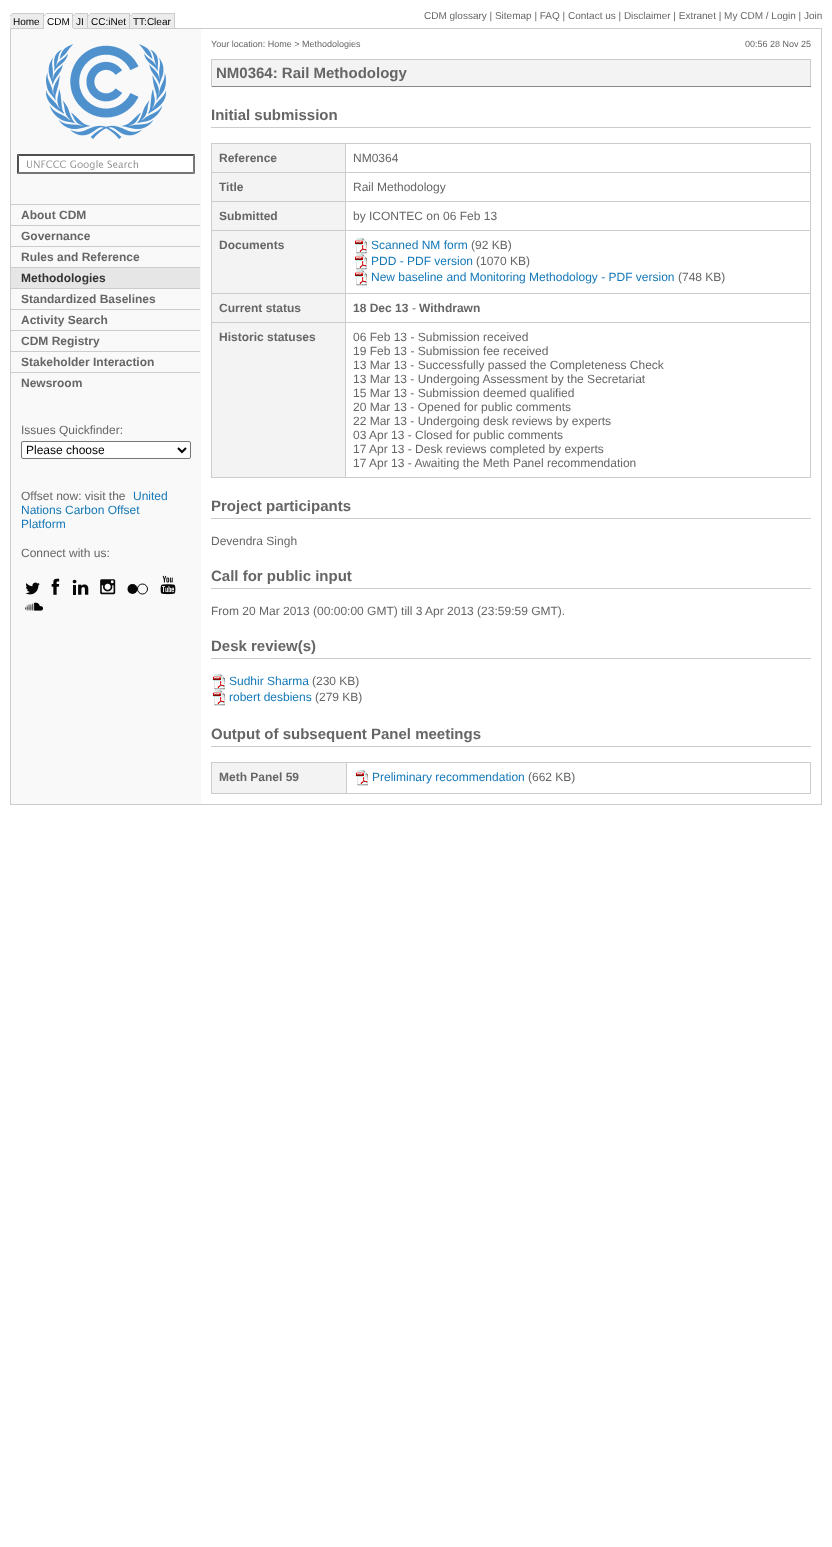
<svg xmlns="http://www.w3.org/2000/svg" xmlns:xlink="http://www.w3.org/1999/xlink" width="832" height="1547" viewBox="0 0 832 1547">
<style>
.cls-1{font:10px Liberation Sans;fill:#000000}
.cls-2{font:10px Liberation Sans;fill:#666666}
.cls-3{font:bold 12px Liberation Sans;fill:#666666}
.cls-4{font:bold 12px Liberation Sans;fill:#333333}
.cls-5{font:12px Liberation Sans;fill:#666666}
.cls-6{font:12px Liberation Sans;fill:#000000}
.cls-7{font:12px Liberation Sans;fill:#1478b7}
.cls-8{font:9px Liberation Sans;fill:#666666}
.cls-9{font:bold 15px Liberation Sans;fill:#666666}
</style>
<rect width="100%" height="100%" fill="#ffffff"/>
<rect fill="#ececec" x="10" y="16" width="33" height="12"/>
<image xlink:href="image0.png" x="10" y="13" width="33" height="3"/>
<rect fill="#f9f9f9" x="11" y="29" width="190" height="775"/>
<rect fill="none" stroke="#cccccc" x="10.5" y="28.5" width="811" height="776"/>
<rect fill="#cccccc" x="43" y="13" width="1" height="16"/>
<rect fill="#f9f9f9" x="44" y="16" width="28" height="12"/>
<image xlink:href="image1.png" x="44" y="13" width="28" height="3"/>
<rect fill="#cccccc" x="72" y="13" width="1" height="16"/>
<rect fill="#f9f9f9" x="44" y="28" width="29" height="1"/>
<rect fill="#ececec" x="73" y="16" width="14" height="12"/>
<image xlink:href="image2.png" x="73" y="13" width="14" height="3"/>
<rect fill="#cccccc" x="87" y="13" width="1" height="16"/>
<rect fill="#ececec" x="88" y="16" width="41" height="12"/>
<image xlink:href="image3.png" x="88" y="13" width="41" height="3"/>
<rect fill="#cccccc" x="129" y="13" width="1" height="16"/>
<rect fill="#ececec" x="130" y="16" width="44" height="12"/>
<image xlink:href="image4.png" x="130" y="13" width="44" height="3"/>
<rect fill="#cccccc" x="174" y="13" width="1" height="16"/>
<image xlink:href="image5.png" x="46" y="44" width="120" height="95"/>
<rect fill="#ffffff" x="17" y="154" width="178" height="20"/>
<image xlink:href="image6.png" x="27" y="160" width="111" height="10"/>
<path fill="#4f4f4f" d="M17 154H195L193 156H19Z"/>
<path fill="#767676" d="M195 154V174L193 172V156Z"/>
<path fill="#767676" d="M195 174H17L19 172H193Z"/>
<path fill="#4f4f4f" d="M17 174V154L19 156V172Z"/>
<rect fill="#cccccc" x="11" y="204" width="189" height="1"/>
<rect fill="#cccccc" x="11" y="225" width="189" height="1"/>
<rect fill="#cccccc" x="11" y="246" width="189" height="1"/>
<rect fill="#e6e6e6" x="11" y="268" width="189" height="20"/>
<rect fill="#cccccc" x="11" y="267" width="189" height="1"/>
<rect fill="#cccccc" x="11" y="288" width="189" height="1"/>
<rect fill="#cccccc" x="11" y="309" width="189" height="1"/>
<rect fill="#cccccc" x="11" y="330" width="189" height="1"/>
<rect fill="#cccccc" x="11" y="351" width="189" height="1"/>
<rect fill="#cccccc" x="11" y="372" width="189" height="1"/>
<rect fill="#ffffff" stroke="#767676" x="21.5" y="441.5" width="169" height="17" rx="1.5"/>
<path fill="none" stroke="#000000" stroke-width="2" d="M178 448L182 452L186 448"/>
<image xlink:href="image7.png" x="25" y="582" width="15" height="13"/>
<image xlink:href="image8.png" x="51" y="578" width="9" height="17"/>
<image xlink:href="image9.png" x="72" y="579" width="17" height="16"/>
<image xlink:href="image10.png" x="100" y="579" width="16" height="16"/>
<circle fill="#070707" cx="132.5" cy="589" r="5"/>
<circle fill="none" stroke="#070707" cx="142.5" cy="589" r="5"/>
<image xlink:href="image11.png" x="160" y="575" width="16" height="20"/>
<image xlink:href="image12.png" x="25" y="602" width="18" height="9"/>
<rect fill="#f3f3f3" x="212" y="60" width="598" height="26"/>
<rect fill="#cccccc" x="211" y="59" width="600" height="1"/>
<rect fill="#cccccc" x="810" y="59" width="1" height="28"/>
<rect fill="#888888" x="211" y="86" width="600" height="1"/>
<rect fill="#cccccc" x="211" y="59" width="1" height="28"/>
<rect fill="#cccccc" x="211" y="127" width="600" height="1"/>
<rect fill="#cccccc" x="211" y="143" width="599" height="334"/>
<rect fill="#cccccc" x="810" y="143" width="1" height="335"/>
<rect fill="#cccccc" x="211" y="477" width="600" height="1"/>
<rect fill="#f3f3f3" x="212" y="144" width="133" height="28"/>
<rect fill="#ffffff" x="346" y="144" width="464" height="28"/>
<rect fill="#f3f3f3" x="212" y="173" width="133" height="28"/>
<rect fill="#ffffff" x="346" y="173" width="464" height="28"/>
<rect fill="#f3f3f3" x="212" y="202" width="133" height="28"/>
<rect fill="#ffffff" x="346" y="202" width="464" height="28"/>
<rect fill="#f3f3f3" x="212" y="231" width="133" height="62"/>
<rect fill="#ffffff" x="346" y="231" width="464" height="62"/>
<image xlink:href="image13.png" x="354" y="238" width="14" height="16"/>
<image xlink:href="image13.png" x="354" y="254" width="14" height="16"/>
<image xlink:href="image13.png" x="354" y="270" width="14" height="16"/>
<rect fill="#f3f3f3" x="212" y="294" width="133" height="28"/>
<rect fill="#ffffff" x="346" y="294" width="464" height="28"/>
<rect fill="#f3f3f3" x="212" y="323" width="133" height="154"/>
<rect fill="#ffffff" x="346" y="323" width="464" height="154"/>
<rect fill="#cccccc" x="211" y="518" width="600" height="1"/>
<rect fill="#cccccc" x="211" y="588" width="600" height="1"/>
<rect fill="#cccccc" x="211" y="658" width="600" height="1"/>
<image xlink:href="image13.png" x="212" y="674" width="14" height="16"/>
<image xlink:href="image13.png" x="212" y="690" width="14" height="16"/>
<rect fill="#cccccc" x="211" y="746" width="600" height="1"/>
<rect fill="#cccccc" x="211" y="762" width="599" height="31"/>
<rect fill="#cccccc" x="810" y="762" width="1" height="32"/>
<rect fill="#cccccc" x="211" y="793" width="600" height="1"/>
<rect fill="#f3f3f3" x="212" y="763" width="134" height="30"/>
<rect fill="#ffffff" x="347" y="763" width="463" height="30"/>
<image xlink:href="image13.png" x="355" y="770" width="14" height="16"/>
<text class="cls-1" x="13" y="25">Home</text>
<text class="cls-1" x="47" y="25">CDM</text>
<text class="cls-1" x="76" y="25">JI</text>
<text class="cls-1" x="91" y="25">CC:iNet</text>
<text class="cls-1" x="133" y="25">TT:Clear</text>
<text class="cls-2" x="424" y="19">CDM glossary | Sitemap | FAQ | Contact us | Disclaimer | Extranet | My CDM / Login | Join</text>
<text class="cls-3"><tspan x="21" y="219">About CDM</tspan><tspan x="21" y="240">Governance</tspan><tspan x="21" y="261">Rules and Reference</tspan></text>
<text class="cls-4" x="21" y="282">Methodologies</text>
<text class="cls-3"><tspan x="21" y="303">Standardized Baselines</tspan><tspan x="21" y="324">Activity Search</tspan><tspan x="21" y="345">CDM Registry</tspan><tspan x="21" y="366">Stakeholder Interaction</tspan><tspan x="21" y="387">Newsroom</tspan></text>
<text class="cls-5" x="21" y="434">Issues Quickfinder:</text>
<text class="cls-6" x="26" y="454">Please choose</text>
<text class="cls-5" x="21" y="500">Offset now: visit the</text>
<text class="cls-7" x="133" y="500">United</text>
<text class="cls-7"><tspan x="21" y="514">Nations Carbon Offset</tspan><tspan x="21" y="528">Platform</tspan></text>
<text class="cls-5" x="21" y="557">Connect with us:</text>
<text class="cls-8" x="211" y="47">Your location: Home &gt; Methodologies</text>
<text class="cls-8" x="745" y="47">00:56 28 Nov 25</text>
<text class="cls-9" x="216" y="78">NM0364: Rail Methodology</text>
<text class="cls-9" x="211" y="120">Initial submission</text>
<text class="cls-3" x="219" y="162">Reference</text>
<text class="cls-5" x="353" y="162">NM0364</text>
<text class="cls-3" x="219" y="191">Title</text>
<text class="cls-5" x="353" y="191">Rail Methodology</text>
<text class="cls-3" x="219" y="220">Submitted</text>
<text class="cls-5" x="353" y="220">by ICONTEC on 06 Feb 13</text>
<text class="cls-3" x="219" y="249">Documents</text>
<text class="cls-7" x="371" y="249">Scanned NM form</text>
<text class="cls-5" x="471" y="249">(92 KB)</text>
<text class="cls-7" x="371" y="265">PDD - PDF version</text>
<text class="cls-5" x="476" y="265">(1070 KB)</text>
<text class="cls-7" x="371" y="281">New baseline and Monitoring Methodology - PDF version</text>
<text class="cls-5" x="678" y="281">(748 KB)</text>
<text class="cls-3" x="219" y="312">Current status</text>
<text class="cls-3" x="353" y="312">18 Dec 13</text>
<text class="cls-5" x="412" y="312">-</text>
<text class="cls-3" x="419" y="312">Withdrawn</text>
<text class="cls-3" x="219" y="341">Historic statuses</text>
<text class="cls-5"><tspan x="353" y="341">06 Feb 13 - Submission received</tspan><tspan x="353" y="355">19 Feb 13 - Submission fee received</tspan><tspan x="353" y="369">13 Mar 13 - Successfully passed the Completeness Check</tspan><tspan x="353" y="383">13 Mar 13 - Undergoing Assessment by the Secretariat</tspan><tspan x="353" y="397">15 Mar 13 - Submission deemed qualified</tspan><tspan x="353" y="411">20 Mar 13 - Opened for public comments</tspan><tspan x="353" y="425">22 Mar 13 - Undergoing desk reviews by experts</tspan><tspan x="353" y="439">03 Apr 13 - Closed for public comments</tspan><tspan x="353" y="453">17 Apr 13 - Desk reviews completed by experts</tspan><tspan x="353" y="467">17 Apr 13 - Awaiting the Meth Panel recommendation</tspan></text>
<text class="cls-9" x="211" y="511">Project participants</text>
<text class="cls-5" x="211" y="545">Devendra Singh</text>
<text class="cls-9" x="211" y="581">Call for public input</text>
<text class="cls-5" x="211" y="615">From 20 Mar 2013 (00:00:00 GMT) till 3 Apr 2013 (23:59:59 GMT).</text>
<text class="cls-9" x="211" y="651">Desk review(s)</text>
<text class="cls-7" x="229" y="685">Sudhir Sharma</text>
<text class="cls-5" x="312" y="685">(230 KB)</text>
<text class="cls-7" x="229" y="701">robert desbiens</text>
<text class="cls-5" x="315" y="701">(279 KB)</text>
<text class="cls-9" x="211" y="739">Output of subsequent Panel meetings</text>
<text class="cls-3" x="219" y="781">Meth Panel 59</text>
<text class="cls-7" x="372" y="781">Preliminary recommendation</text>
<text class="cls-5" x="528" y="781">(662 KB)</text>
</svg>
